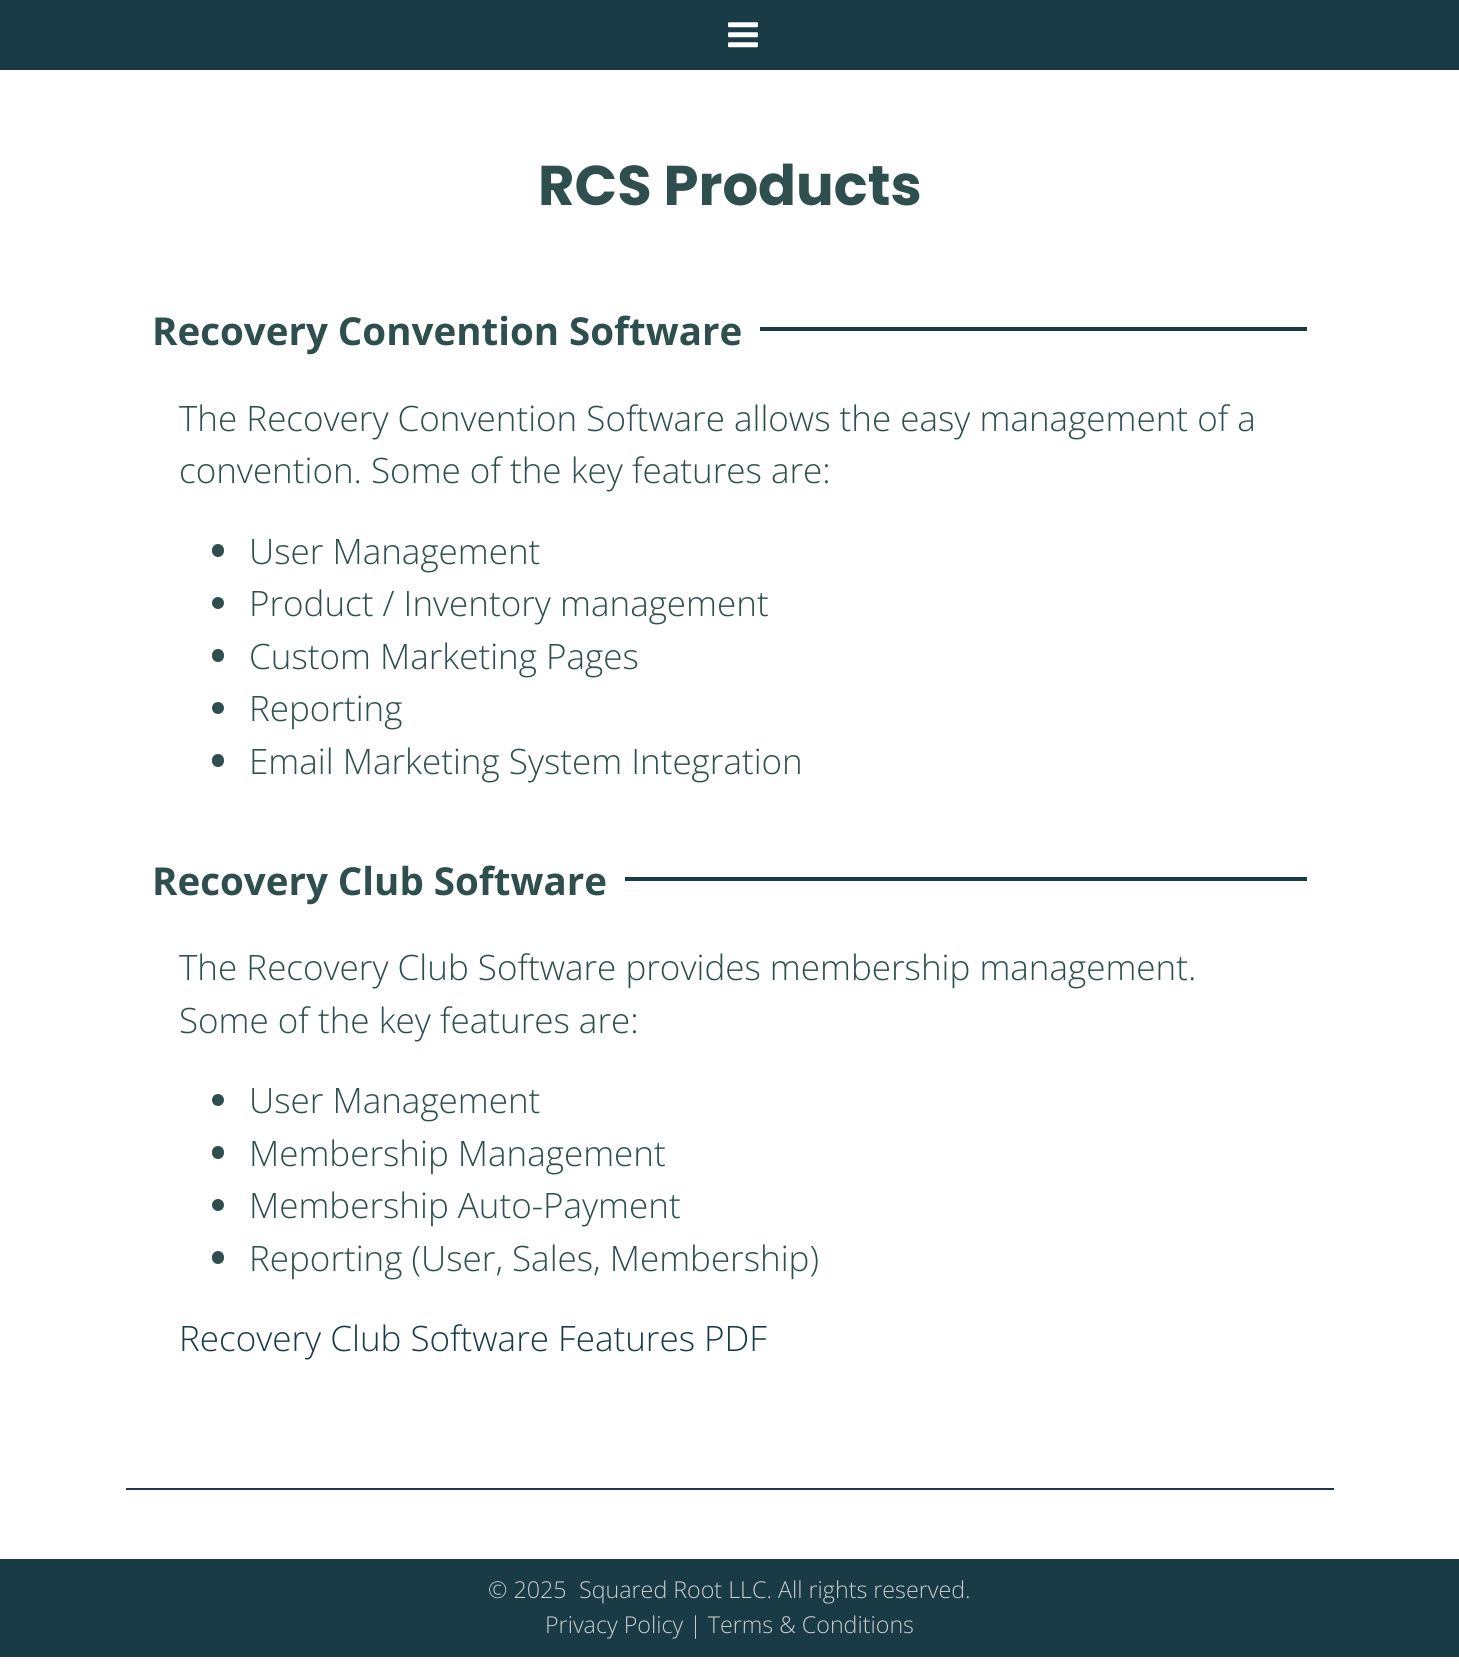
import math
import cairo


def use_color(cr, r, g, b):
  cr.set_source_rgb(r / 255, g / 255, b / 255)

def text(cr, x, y, s, family, size, color, bold=False, italic=False):
  cr.select_font_face(family, cairo.FONT_SLANT_ITALIC if italic else cairo.FONT_SLANT_NORMAL, cairo.FONT_WEIGHT_BOLD if bold else cairo.FONT_WEIGHT_NORMAL)
  cr.set_font_size(size)
  use_color(cr, *color)
  cr.move_to(x, y)
  cr.show_text(s)

def box(cr, x, y, w, h, *color):
  use_color(cr, *color)
  cr.rectangle(x, y, w, h)
  cr.fill()

def round_rect(cr, x, y, w, h, r):
  cr.new_sub_path()
  for i, (u, v) in enumerate([(x + w - r, y + h - r), (x + r, y + h - r), (x + r, y + r), (x + w - r, y + r)]):
    cr.arc(u, v, r, i * math.pi / 2, (i + 1) * math.pi / 2)
  cr.close_path()

def picture(cr, path, x, y, w, h):
  cr.save()
  cr.set_source_surface(cairo.ImageSurface.create_from_png(path), x, y)
  cr.rectangle(x, y, w, h)
  cr.fill()
  cr.restore()

def draw(cr):
  use_color(cr, 255, 255, 255)
  cr.paint()
  box(cr, 0, 0, 1459, 70, 25, 59, 69)
  picture(cr, "img_01.png", 728, 22, 30, 26)
  box(cr, 126, 1488, 1208, 2, 25, 59, 69)
  box(cr, 760, 327, 547, 4, 25, 59, 69)
  use_color(cr, 47, 79, 79)
  round_rect(cr, 212, 544, 12, 13, 6)
  cr.fill()
  cr.arc(218, 603, 6, 0, 2 * math.pi)
  cr.fill()
  round_rect(cr, 212, 649, 12, 13, 6)
  cr.fill()
  cr.arc(218, 708, 6, 0, 2 * math.pi)
  cr.fill()
  round_rect(cr, 212, 754, 12, 13, 6)
  cr.fill()
  box(cr, 625, 877, 682, 4, 25, 59, 69)
  use_color(cr, 47, 79, 79)
  cr.arc(218, 1100, 6, 0, 2 * math.pi)
  cr.fill()
  round_rect(cr, 212, 1146, 12, 13, 6)
  cr.fill()
  cr.arc(218, 1205, 6, 0, 2 * math.pi)
  cr.fill()
  round_rect(cr, 212, 1251, 12, 13, 6)
  cr.fill()
  box(cr, 0, 1559, 1459, 98, 25, 59, 69)
  text(cr, 538, 205, "RCS Products", "Poppins", 56, (47, 79, 79), bold=True)
  text(cr, 152, 345, "Recovery Convention Software", "Open Sans", 38.5, (47, 79, 79), bold=True)
  text(cr, 179, 431, "The Recovery Convention Software allows the easy management of a", "Open Sans Light", 35, (47, 79, 79))
  text(cr, 179, 483, "convention. Some of the key features are:", "Open Sans Light", 35, (47, 79, 79))
  text(cr, 249, 564, "User Management", "Open Sans Light", 35, (47, 79, 79))
  text(cr, 249, 616, "Product / Inventory management", "Open Sans Light", 35, (47, 79, 79))
  text(cr, 249, 669, "Custom Marketing Pages", "Open Sans Light", 35, (47, 79, 79))
  text(cr, 249, 721, "Reporting", "Open Sans Light", 35, (47, 79, 79))
  text(cr, 249, 774, "Email Marketing System Integration", "Open Sans Light", 35, (47, 79, 79))
  text(cr, 152, 895, "Recovery Club Software", "Open Sans", 38.5, (47, 79, 79), bold=True)
  text(cr, 179, 980, "The Recovery Club Software provides membership management.", "Open Sans Light", 35, (47, 79, 79))
  text(cr, 179, 1033, "Some of the key features are:", "Open Sans Light", 35, (47, 79, 79))
  text(cr, 249, 1113, "User Management", "Open Sans Light", 35, (47, 79, 79))
  text(cr, 249, 1166, "Membership Management", "Open Sans Light", 35, (47, 79, 79))
  text(cr, 249, 1218, "Membership Auto-Payment", "Open Sans Light", 35, (47, 79, 79))
  text(cr, 249, 1271, "Reporting (User, Sales, Membership)", "Open Sans Light", 35, (47, 79, 79))
  text(cr, 179, 1351, "Recovery Club Software Features PDF", "Open Sans Light", 35, (25, 59, 69))
  text(cr, 488, 1598, "© 2025", "Open Sans Light", 23.25, (204, 204, 204))
  text(cr, 579, 1598, "Squared Root LLC. All rights reserved.", "Open Sans Light", 23.25, (204, 204, 204))
  text(cr, 545, 1633, "Privacy Policy | Terms & Conditions", "Open Sans Light", 23.25, (204, 204, 204))


surface = cairo.ImageSurface(cairo.FORMAT_RGB24, 1459, 1674)
cr = cairo.Context(surface)
options = cairo.FontOptions()
options.set_hint_metrics(cairo.HINT_METRICS_OFF)
options.set_hint_style(cairo.HINT_STYLE_NONE)
cr.set_font_options(options)
cr.set_miter_limit(4)
draw(cr)
surface.write_to_png("out.png")
